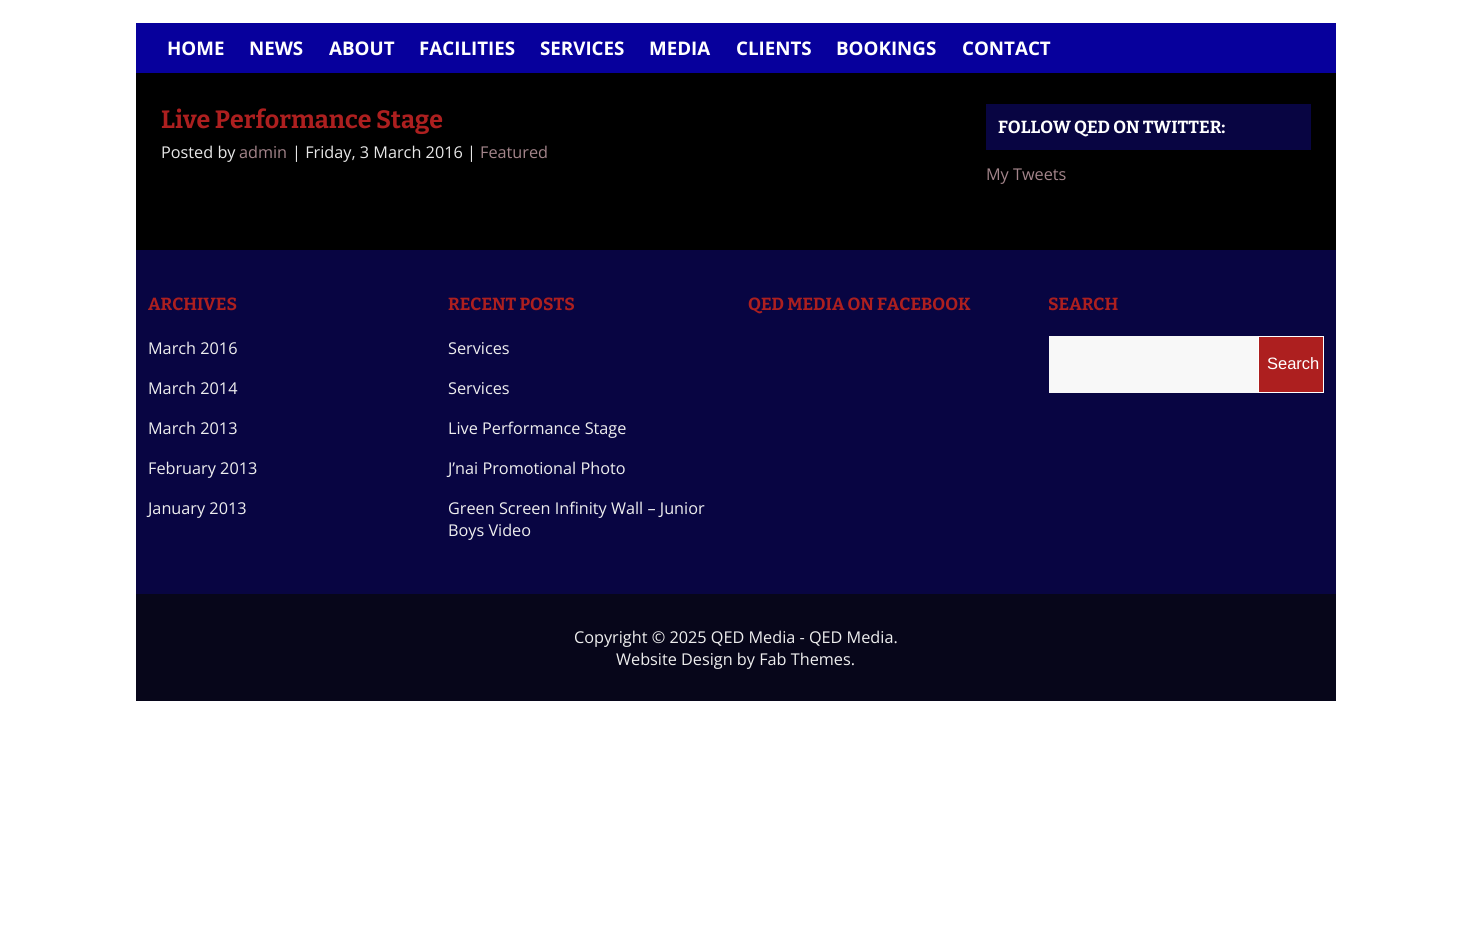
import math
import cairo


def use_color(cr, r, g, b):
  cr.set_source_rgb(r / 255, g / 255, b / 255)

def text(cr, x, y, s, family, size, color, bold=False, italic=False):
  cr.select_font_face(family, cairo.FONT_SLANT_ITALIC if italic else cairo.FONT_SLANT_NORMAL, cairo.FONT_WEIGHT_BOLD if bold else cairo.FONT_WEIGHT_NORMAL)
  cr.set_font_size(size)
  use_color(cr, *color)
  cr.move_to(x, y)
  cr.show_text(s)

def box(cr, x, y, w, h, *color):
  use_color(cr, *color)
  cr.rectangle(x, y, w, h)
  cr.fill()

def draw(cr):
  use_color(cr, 255, 255, 255)
  cr.paint()
  box(cr, 136, 23, 1200, 50, 7, 0, 156)
  box(cr, 136, 73, 1200, 177, 0, 0, 0)
  box(cr, 986, 104, 325, 46, 8, 5, 66)
  box(cr, 136, 250, 1200, 344, 8, 5, 66)
  box(cr, 1049, 336, 209, 57, 248, 248, 248)
  use_color(cr, 173, 31, 31)
  cr.rectangle(1258.5, 336.5, 65, 56)
  cr.fill_preserve()
  use_color(cr, 255, 255, 255)
  cr.set_line_width(1)
  cr.stroke()
  box(cr, 136, 594, 1200, 107, 7, 6, 26)
  text(cr, 167, 55, "HOME", "Open Sans", 18.75, (255, 255, 255), bold=True)
  text(cr, 249, 55, "NEWS", "Open Sans", 18.75, (255, 255, 255), bold=True)
  text(cr, 329, 55, "ABOUT", "Open Sans", 18.75, (255, 255, 255), bold=True)
  text(cr, 419, 55, "FACILITIES", "Open Sans", 18.75, (255, 255, 255), bold=True)
  text(cr, 540, 55, "SERVICES", "Open Sans", 18.75, (255, 255, 255), bold=True)
  text(cr, 649, 55, "MEDIA", "Open Sans", 18.75, (255, 255, 255), bold=True)
  text(cr, 736, 55, "CLIENTS", "Open Sans", 18.75, (255, 255, 255), bold=True)
  text(cr, 836, 55, "BOOKINGS", "Open Sans", 18.75, (255, 255, 255), bold=True)
  text(cr, 962, 55, "CONTACT", "Open Sans", 18.75, (255, 255, 255), bold=True)
  text(cr, 161, 128, "Live Performance Stage", "Bitter", 25, (173, 31, 31), bold=True)
  text(cr, 161, 158, "Posted by", "Open Sans", 16.25, (231, 231, 231))
  text(cr, 239, 158, "admin", "Open Sans", 16.25, (163, 132, 138))
  text(cr, 292, 158, "| Friday, 3 March 2016 |", "Open Sans", 16.25, (231, 231, 231))
  text(cr, 480, 158, "Featured", "Open Sans", 16.25, (163, 132, 138))
  text(cr, 998, 133, "FOLLOW QED ON TWITTER:", "Bitter", 17.5, (255, 255, 255), bold=True)
  text(cr, 986, 180, "My Tweets", "Open Sans", 16.25, (163, 132, 138))
  text(cr, 148, 310, "ARCHIVES", "Bitter", 17.5, (173, 31, 31), bold=True)
  text(cr, 148, 354, "March 2016", "Open Sans", 16.25, (238, 238, 238))
  text(cr, 148, 394, "March 2014", "Open Sans", 16.25, (238, 238, 238))
  text(cr, 148, 434, "March 2013", "Open Sans", 16.25, (238, 238, 238))
  text(cr, 148, 474, "February 2013", "Open Sans", 16.25, (238, 238, 238))
  text(cr, 148, 514, "January 2013", "Open Sans", 16.25, (238, 238, 238))
  text(cr, 448, 310, "RECENT POSTS", "Bitter", 17.5, (173, 31, 31), bold=True)
  text(cr, 448, 354, "Services", "Open Sans", 16.25, (238, 238, 238))
  text(cr, 448, 394, "Services", "Open Sans", 16.25, (238, 238, 238))
  text(cr, 448, 434, "Live Performance Stage", "Open Sans", 16.25, (238, 238, 238))
  text(cr, 448, 474, "J’nai Promotional Photo", "Open Sans", 16.25, (238, 238, 238))
  text(cr, 448, 514, "Green Screen Infinity Wall – Junior", "Open Sans", 16.25, (238, 238, 238))
  text(cr, 448, 536, "Boys Video", "Open Sans", 16.25, (238, 238, 238))
  text(cr, 748, 310, "QED MEDIA ON FACEBOOK", "Bitter", 17.5, (173, 31, 31), bold=True)
  text(cr, 1048, 310, "SEARCH", "Bitter", 17.5, (173, 31, 31), bold=True)
  text(cr, 1267, 369, "Search", "Liberation Sans", 16.5, (255, 255, 255))
  text(cr, 574, 643, "Copyright © 2025 QED Media - QED Media.", "Open Sans", 16.25, (238, 238, 238))
  text(cr, 616, 665, "Website Design by Fab Themes.", "Open Sans", 16.25, (238, 238, 238))


surface = cairo.ImageSurface(cairo.FORMAT_RGB24, 1471, 935)
cr = cairo.Context(surface)
options = cairo.FontOptions()
options.set_hint_metrics(cairo.HINT_METRICS_OFF)
options.set_hint_style(cairo.HINT_STYLE_NONE)
cr.set_font_options(options)
cr.set_miter_limit(4)
draw(cr)
surface.write_to_png("out.png")
